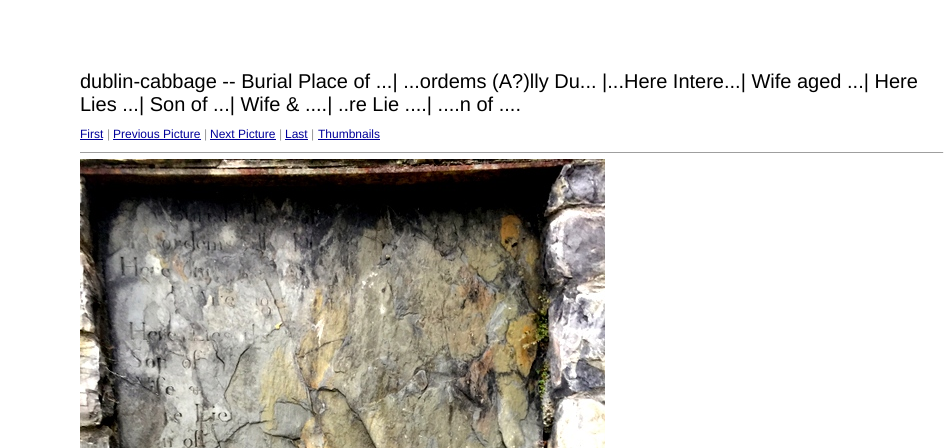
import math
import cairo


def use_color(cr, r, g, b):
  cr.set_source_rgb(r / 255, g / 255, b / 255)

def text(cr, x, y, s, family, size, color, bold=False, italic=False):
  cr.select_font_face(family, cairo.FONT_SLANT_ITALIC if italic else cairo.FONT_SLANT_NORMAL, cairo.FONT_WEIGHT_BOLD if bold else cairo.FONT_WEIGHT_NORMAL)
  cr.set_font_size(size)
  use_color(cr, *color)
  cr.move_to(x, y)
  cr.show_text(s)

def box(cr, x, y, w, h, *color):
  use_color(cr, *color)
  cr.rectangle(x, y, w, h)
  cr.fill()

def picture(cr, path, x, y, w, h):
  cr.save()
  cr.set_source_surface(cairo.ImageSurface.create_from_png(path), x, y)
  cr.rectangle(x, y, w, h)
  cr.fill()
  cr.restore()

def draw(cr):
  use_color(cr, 255, 255, 255)
  cr.paint()
  box(cr, 80, 139, 23, 1, 0, 0, 153)
  box(cr, 113, 139, 88, 1, 0, 0, 153)
  box(cr, 210, 139, 66, 1, 0, 0, 153)
  box(cr, 285, 139, 23, 1, 0, 0, 153)
  box(cr, 318, 139, 62, 1, 0, 0, 153)
  box(cr, 80, 152, 864, 1, 159, 159, 159)
  box(cr, 943, 152, 1, 1, 238, 238, 238)
  picture(cr, "img_01.png", 80, 159, 525, 289)
  text(cr, 80, 88, "dublin-cabbage -- Burial Place of ...| ...ordems (A?)lly Du... |...Here Intere...| Wife aged ...| Here", "Liberation Sans", 20, (0, 0, 0))
  text(cr, 80, 111, "Lies ...| Son of ...| Wife & ....| ..re Lie ....| ....n of ....", "Liberation Sans", 20, (0, 0, 0))
  text(cr, 80, 138, "First", "Liberation Sans", 12, (0, 0, 153))
  text(cr, 107, 138, "|", "Liberation Sans", 12, (151, 151, 151))
  text(cr, 113, 138, "Previous Picture", "Liberation Sans", 12, (0, 0, 153))
  text(cr, 204, 138, "|", "Liberation Sans", 12, (151, 151, 151))
  text(cr, 210, 138, "Next Picture", "Liberation Sans", 12, (0, 0, 153))
  text(cr, 279, 138, "|", "Liberation Sans", 12, (151, 151, 151))
  text(cr, 285, 138, "Last", "Liberation Sans", 12, (0, 0, 153))
  text(cr, 311, 138, "|", "Liberation Sans", 12, (151, 151, 151))
  text(cr, 318, 138, "Thumbnails", "Liberation Sans", 12, (0, 0, 153))


surface = cairo.ImageSurface(cairo.FORMAT_RGB24, 952, 448)
cr = cairo.Context(surface)
options = cairo.FontOptions()
options.set_hint_metrics(cairo.HINT_METRICS_OFF)
options.set_hint_style(cairo.HINT_STYLE_NONE)
cr.set_font_options(options)
cr.set_miter_limit(4)
draw(cr)
surface.write_to_png("out.png")
